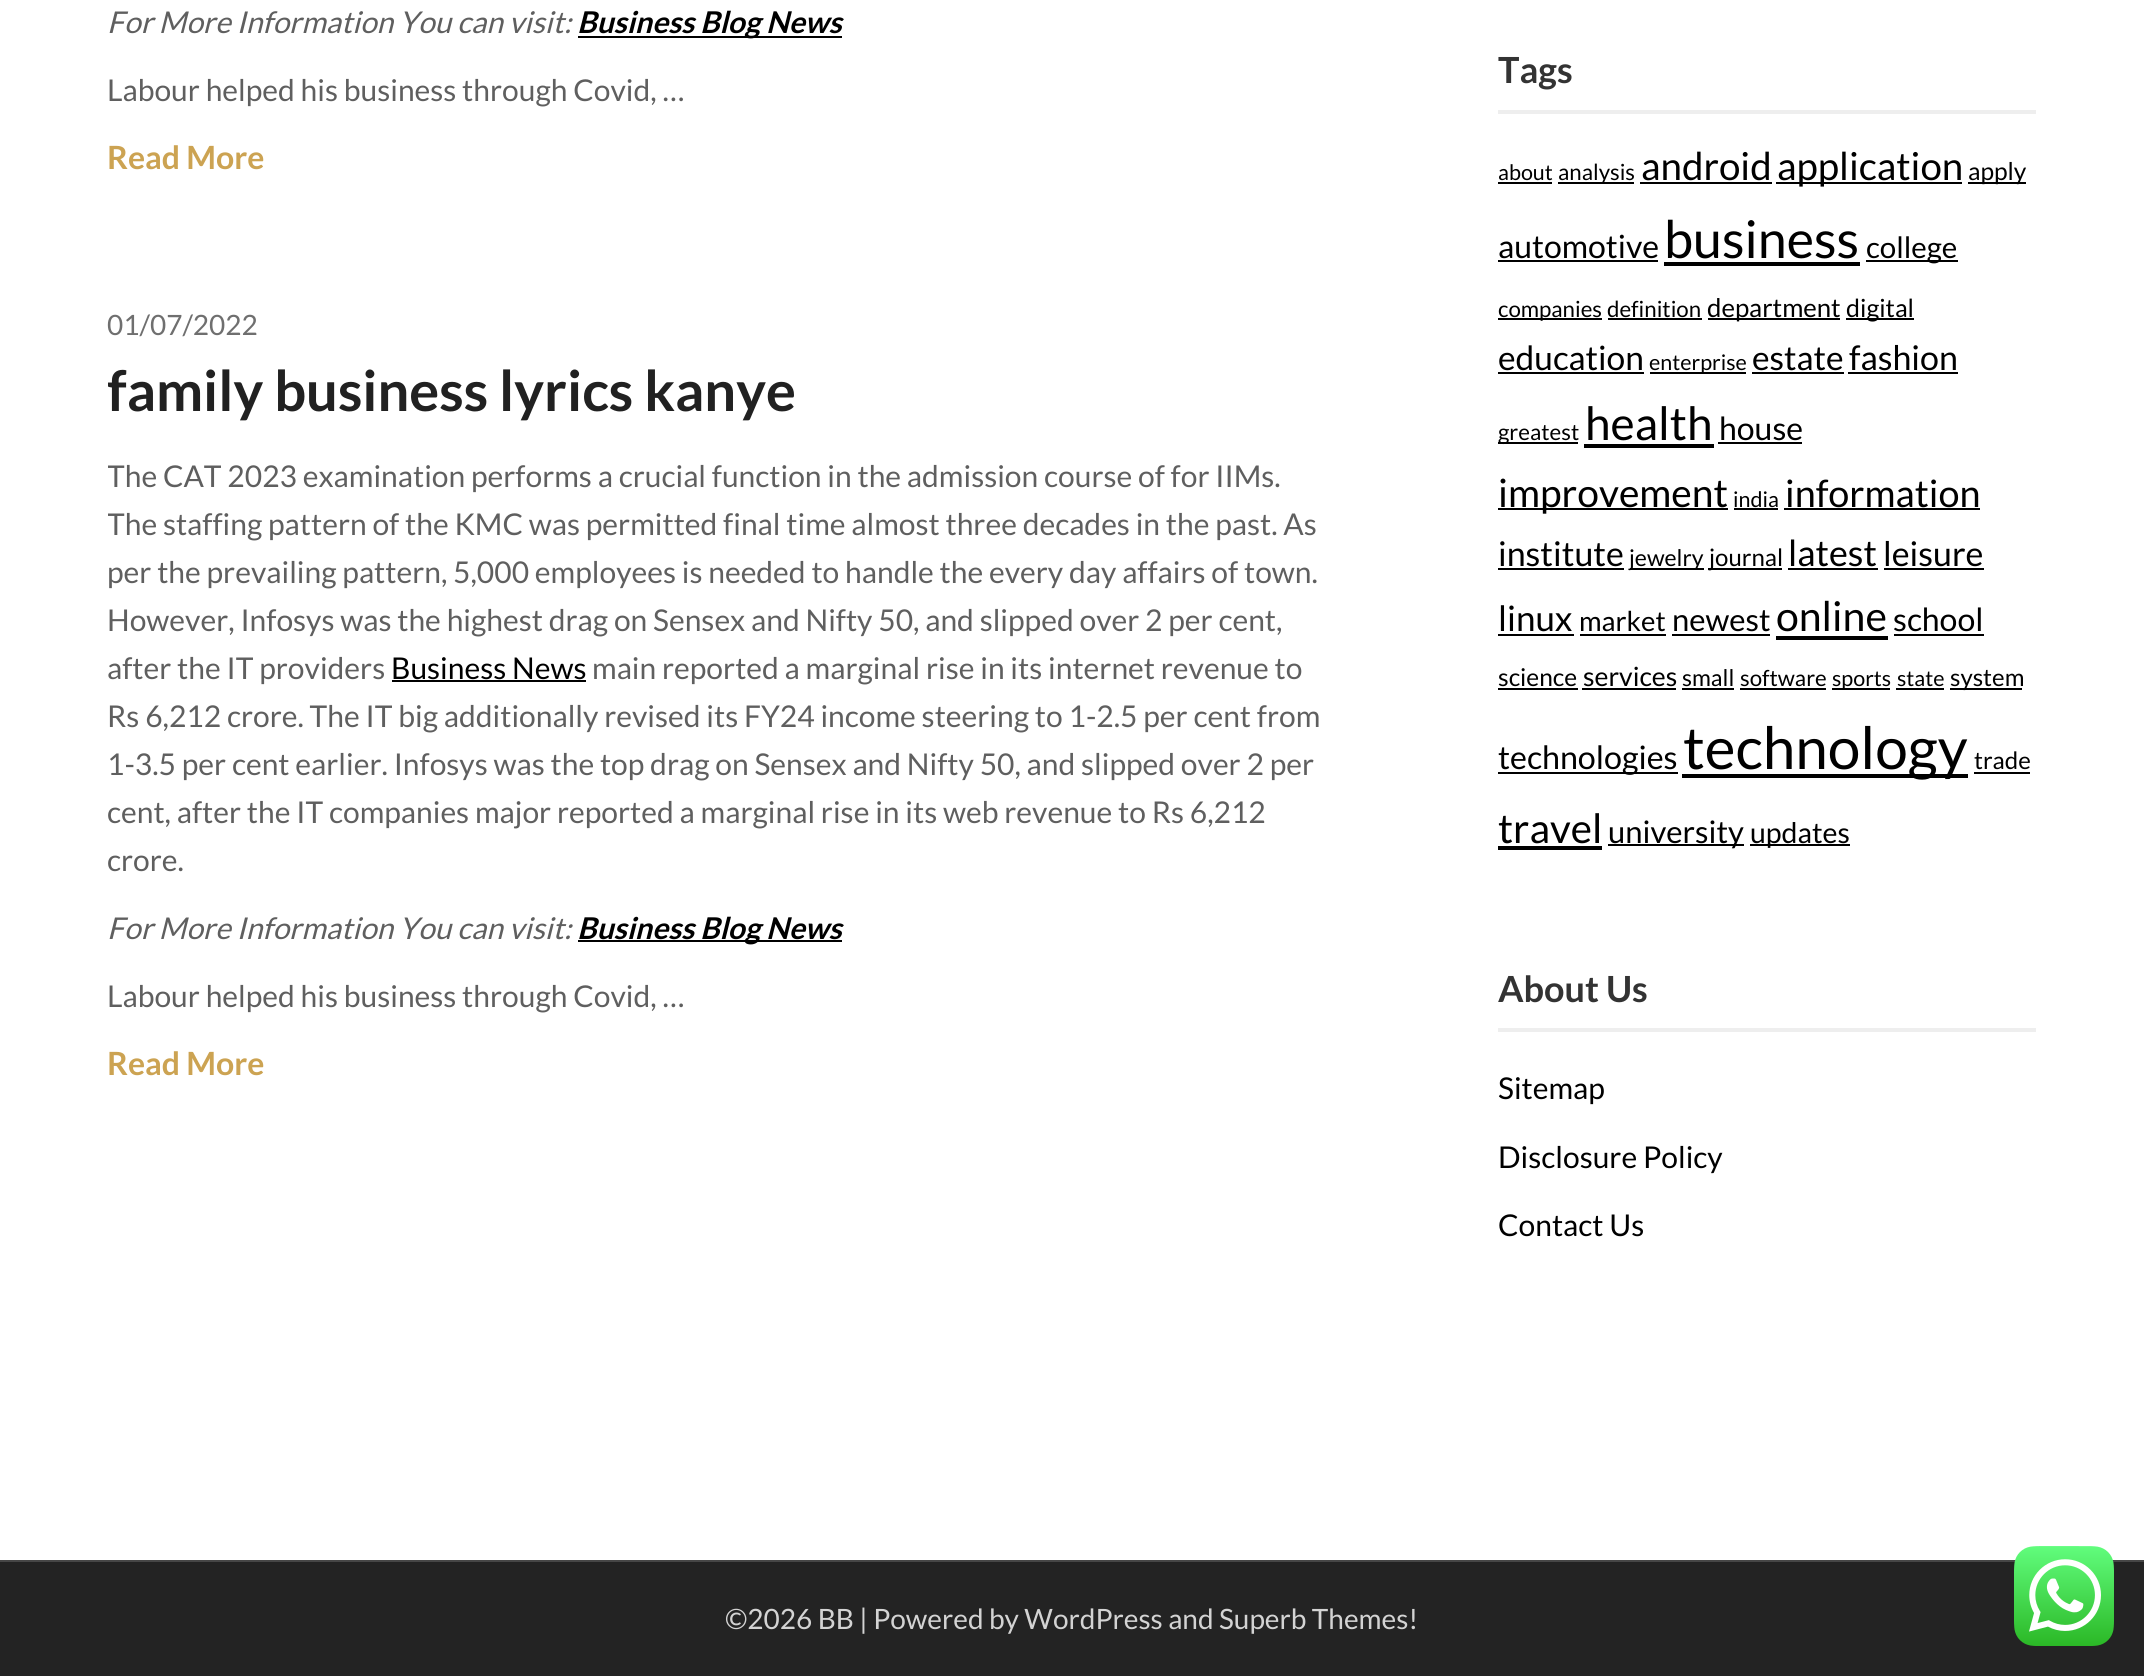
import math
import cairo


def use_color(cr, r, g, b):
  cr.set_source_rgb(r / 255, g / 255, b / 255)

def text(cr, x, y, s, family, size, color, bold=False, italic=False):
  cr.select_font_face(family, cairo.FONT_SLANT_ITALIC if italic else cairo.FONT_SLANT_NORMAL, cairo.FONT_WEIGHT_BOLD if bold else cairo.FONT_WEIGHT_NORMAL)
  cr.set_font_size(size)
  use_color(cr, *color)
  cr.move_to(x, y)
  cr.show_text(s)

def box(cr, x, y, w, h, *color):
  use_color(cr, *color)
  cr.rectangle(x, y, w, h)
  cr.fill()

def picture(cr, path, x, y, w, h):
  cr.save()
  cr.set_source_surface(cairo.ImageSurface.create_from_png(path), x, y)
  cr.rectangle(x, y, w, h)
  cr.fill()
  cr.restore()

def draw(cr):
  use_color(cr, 255, 255, 255)
  cr.paint()
  box(cr, 578, 36, 264, 2, 0, 0, 0)
  box(cr, 392, 680, 194, 2, 0, 0, 0)
  box(cr, 578, 940, 264, 2, 0, 0, 0)
  box(cr, 1498, 110, 538, 4, 238, 238, 238)
  box(cr, 1498, 182, 54, 2, 0, 0, 0)
  box(cr, 1558, 182, 76, 2, 0, 0, 0)
  box(cr, 1640, 182, 132, 2, 0, 0, 0)
  box(cr, 1776, 182, 186, 2, 0, 0, 0)
  box(cr, 1968, 182, 58, 2, 0, 0, 0)
  box(cr, 1498, 260, 160, 2, 0, 0, 0)
  box(cr, 1664, 262, 196, 4, 0, 0, 0)
  box(cr, 1866, 260, 92, 2, 0, 0, 0)
  box(cr, 1498, 318, 104, 2, 0, 0, 0)
  box(cr, 1608, 318, 94, 2, 0, 0, 0)
  box(cr, 1708, 318, 132, 2, 0, 0, 0)
  box(cr, 1846, 318, 68, 2, 0, 0, 0)
  box(cr, 1498, 372, 146, 2, 0, 0, 0)
  box(cr, 1650, 372, 96, 2, 0, 0, 0)
  box(cr, 1752, 372, 92, 2, 0, 0, 0)
  box(cr, 1848, 372, 110, 2, 0, 0, 0)
  box(cr, 1498, 442, 80, 2, 0, 0, 0)
  box(cr, 1584, 444, 130, 4, 0, 0, 0)
  box(cr, 1718, 442, 84, 2, 0, 0, 0)
  box(cr, 1498, 508, 230, 2, 0, 0, 0)
  box(cr, 1734, 508, 44, 2, 0, 0, 0)
  box(cr, 1784, 508, 196, 2, 0, 0, 0)
  box(cr, 1498, 568, 126, 2, 0, 0, 0)
  box(cr, 1630, 568, 74, 2, 0, 0, 0)
  box(cr, 1708, 568, 74, 2, 0, 0, 0)
  box(cr, 1788, 568, 90, 2, 0, 0, 0)
  box(cr, 1884, 568, 100, 2, 0, 0, 0)
  box(cr, 1498, 634, 76, 2, 0, 0, 0)
  box(cr, 1580, 634, 86, 2, 0, 0, 0)
  box(cr, 1672, 634, 98, 2, 0, 0, 0)
  box(cr, 1776, 636, 112, 4, 0, 0, 0)
  box(cr, 1894, 634, 90, 2, 0, 0, 0)
  box(cr, 1498, 688, 80, 2, 0, 0, 0)
  box(cr, 1582, 688, 94, 2, 0, 0, 0)
  box(cr, 1682, 688, 52, 2, 0, 0, 0)
  box(cr, 1740, 688, 86, 2, 0, 0, 0)
  box(cr, 1832, 688, 58, 2, 0, 0, 0)
  box(cr, 1896, 688, 48, 2, 0, 0, 0)
  box(cr, 1950, 688, 72, 2, 0, 0, 0)
  box(cr, 1498, 772, 180, 2, 0, 0, 0)
  box(cr, 1682, 774, 286, 4, 0, 0, 0)
  box(cr, 1974, 772, 56, 2, 0, 0, 0)
  box(cr, 1498, 846, 104, 4, 0, 0, 0)
  box(cr, 1608, 844, 136, 2, 0, 0, 0)
  box(cr, 1750, 844, 100, 2, 0, 0, 0)
  box(cr, 1498, 1028, 538, 4, 238, 238, 238)
  box(cr, 0, 1562, 2144, 114, 35, 35, 35)
  box(cr, 0, 1560, 2144, 2, 70, 70, 70)
  picture(cr, "img_01.png", 2014, 1546, 100, 100)
  text(cr, 107, 33, "For More Information You can visit:", "Lato", 30, (95, 95, 95), italic=True)
  text(cr, 577, 33, "Business Blog News", "Lato", 30, (0, 0, 0), bold=True, italic=True)
  text(cr, 107, 101, "Labour helped his business through Covid, …", "Lato", 30, (95, 95, 95))
  text(cr, 107, 169, "Read More", "Lato", 32, (204, 163, 82), bold=True)
  text(cr, 107, 335, "01/07/2022", "Lato", 28, (111, 111, 111))
  cr.save()
  cr.rectangle(108, 296, 1272, 790)
  cr.clip()
  text(cr, 107, 411, "family business lyrics kanye", "Lato", 56, (33, 33, 33), bold=True)
  text(cr, 107, 487, "The CAT 2023 examination performs a crucial function in the admission course of for IIMs.", "Lato", 30, (95, 95, 95))
  text(cr, 107, 535, "The staffing pattern of the KMC was permitted final time almost three decades in the past. As", "Lato", 30, (95, 95, 95))
  cr.restore()
  text(cr, 107, 583, "per the prevailing pattern, 5,000 employees is needed to handle the every day affairs of town.", "Lato", 30, (95, 95, 95))
  text(cr, 107, 631, "However, Infosys was the highest drag on Sensex and Nifty 50, and slipped over 2 per cent,", "Lato", 30, (95, 95, 95))
  text(cr, 107, 679, "after the IT providers", "Lato", 30, (95, 95, 95))
  text(cr, 391, 679, "Business News", "Lato", 30, (0, 0, 0))
  text(cr, 592, 679, "main reported a marginal rise in its internet revenue to", "Lato", 30, (95, 95, 95))
  text(cr, 107, 727, "Rs 6,212 crore. The IT big additionally revised its FY24 income steering to 1-2.5 per cent from", "Lato", 30, (95, 95, 95))
  text(cr, 107, 775, "1-3.5 per cent earlier. Infosys was the top drag on Sensex and Nifty 50, and slipped over 2 per", "Lato", 30, (95, 95, 95))
  text(cr, 107, 823, "cent, after the IT companies major reported a marginal rise in its web revenue to Rs 6,212", "Lato", 30, (95, 95, 95))
  text(cr, 107, 871, "crore.", "Lato", 30, (95, 95, 95))
  text(cr, 107, 939, "For More Information You can visit:", "Lato", 30, (95, 95, 95), italic=True)
  text(cr, 577, 939, "Business Blog News", "Lato", 30, (0, 0, 0), bold=True, italic=True)
  text(cr, 107, 1007, "Labour helped his business through Covid, …", "Lato", 30, (95, 95, 95))
  text(cr, 107, 1075, "Read More", "Lato", 32, (204, 163, 82), bold=True)
  text(cr, 1498, 83, "Tags", "Lato", 36, (51, 51, 51), bold=True)
  text(cr, 1498, 180, "about", "Lato", 21.5, (0, 0, 0))
  text(cr, 1558, 180, "analysis", "Lato", 22.25, (0, 0, 0))
  text(cr, 1641, 180, "android", "Lato", 38.5, (0, 0, 0))
  text(cr, 1777, 180, "application", "Lato", 38.5, (0, 0, 0))
  text(cr, 1968, 180, "apply", "Lato", 24.5, (0, 0, 0))
  text(cr, 1498, 258, "automotive", "Lato", 32, (0, 0, 0))
  text(cr, 1664, 258, "business", "Lato", 52, (0, 0, 0))
  text(cr, 1866, 258, "college", "Lato", 29.5, (0, 0, 0))
  text(cr, 1498, 317, "companies", "Lato", 22.25, (0, 0, 0))
  text(cr, 1607, 317, "definition", "Lato", 22.25, (0, 0, 0))
  text(cr, 1707, 317, "department", "Lato", 25.75, (0, 0, 0))
  text(cr, 1846, 317, "digital", "Lato", 25, (0, 0, 0))
  text(cr, 1498, 370, "education", "Lato", 33.5, (0, 0, 0))
  text(cr, 1649, 370, "enterprise", "Lato", 21.5, (0, 0, 0))
  text(cr, 1752, 370, "estate", "Lato", 33.5, (0, 0, 0))
  text(cr, 1849, 370, "fashion", "Lato", 34, (0, 0, 0))
  text(cr, 1498, 440, "greatest", "Lato", 22.25, (0, 0, 0))
  text(cr, 1585, 440, "health", "Lato", 46, (0, 0, 0))
  text(cr, 1719, 440, "house", "Lato", 32, (0, 0, 0))
  text(cr, 1498, 507, "improvement", "Lato", 39, (0, 0, 0))
  text(cr, 1733, 507, "india", "Lato", 21.5, (0, 0, 0))
  text(cr, 1785, 507, "information", "Lato", 37.75, (0, 0, 0))
  text(cr, 1498, 566, "institute", "Lato", 34, (0, 0, 0))
  text(cr, 1629, 566, "jewelry", "Lato", 23, (0, 0, 0))
  text(cr, 1709, 566, "journal", "Lato", 24, (0, 0, 0))
  text(cr, 1788, 566, "latest", "Lato", 36, (0, 0, 0))
  text(cr, 1883, 566, "leisure", "Lato", 34, (0, 0, 0))
  text(cr, 1498, 631, "linux", "Lato", 35, (0, 0, 0))
  text(cr, 1579, 631, "market", "Lato", 27.5, (0, 0, 0))
  text(cr, 1672, 631, "newest", "Lato", 31, (0, 0, 0))
  text(cr, 1776, 631, "online", "Lato", 41, (0, 0, 0))
  text(cr, 1893, 631, "school", "Lato", 32, (0, 0, 0))
  text(cr, 1498, 686, "science", "Lato", 24.5, (0, 0, 0))
  text(cr, 1583, 686, "services", "Lato", 26.5, (0, 0, 0))
  text(cr, 1682, 686, "small", "Lato", 23, (0, 0, 0))
  text(cr, 1740, 686, "software", "Lato", 22.25, (0, 0, 0))
  text(cr, 1832, 686, "sports", "Lato", 21.5, (0, 0, 0))
  text(cr, 1897, 686, "state", "Lato", 21.5, (0, 0, 0))
  text(cr, 1950, 686, "system", "Lato", 24, (0, 0, 0))
  text(cr, 1498, 769, "technologies", "Lato", 32.25, (0, 0, 0))
  text(cr, 1683, 769, "technology", "Lato", 58.5, (0, 0, 0))
  text(cr, 1974, 769, "trade", "Lato", 24, (0, 0, 0))
  text(cr, 1498, 843, "travel", "Lato", 40.5, (0, 0, 0))
  text(cr, 1608, 843, "university", "Lato", 31, (0, 0, 0))
  text(cr, 1750, 843, "updates", "Lato", 28.5, (0, 0, 0))
  text(cr, 1498, 1002, "About Us", "Lato", 36, (51, 51, 51), bold=True)
  text(cr, 1498, 1099, "Sitemap", "Lato", 30, (0, 0, 0))
  text(cr, 1498, 1168, "Disclosure Policy", "Lato", 30, (0, 0, 0))
  text(cr, 1498, 1236, "Contact Us", "Lato", 30, (0, 0, 0))
  text(cr, 725, 1629, "©2026 BB | Powered by WordPress and Superb Themes!", "Lato", 28, (211, 211, 211))


surface = cairo.ImageSurface(cairo.FORMAT_RGB24, 2144, 1676)
cr = cairo.Context(surface)
options = cairo.FontOptions()
options.set_hint_metrics(cairo.HINT_METRICS_OFF)
options.set_hint_style(cairo.HINT_STYLE_NONE)
cr.set_font_options(options)
cr.set_miter_limit(4)
draw(cr)
surface.write_to_png("out.png")
